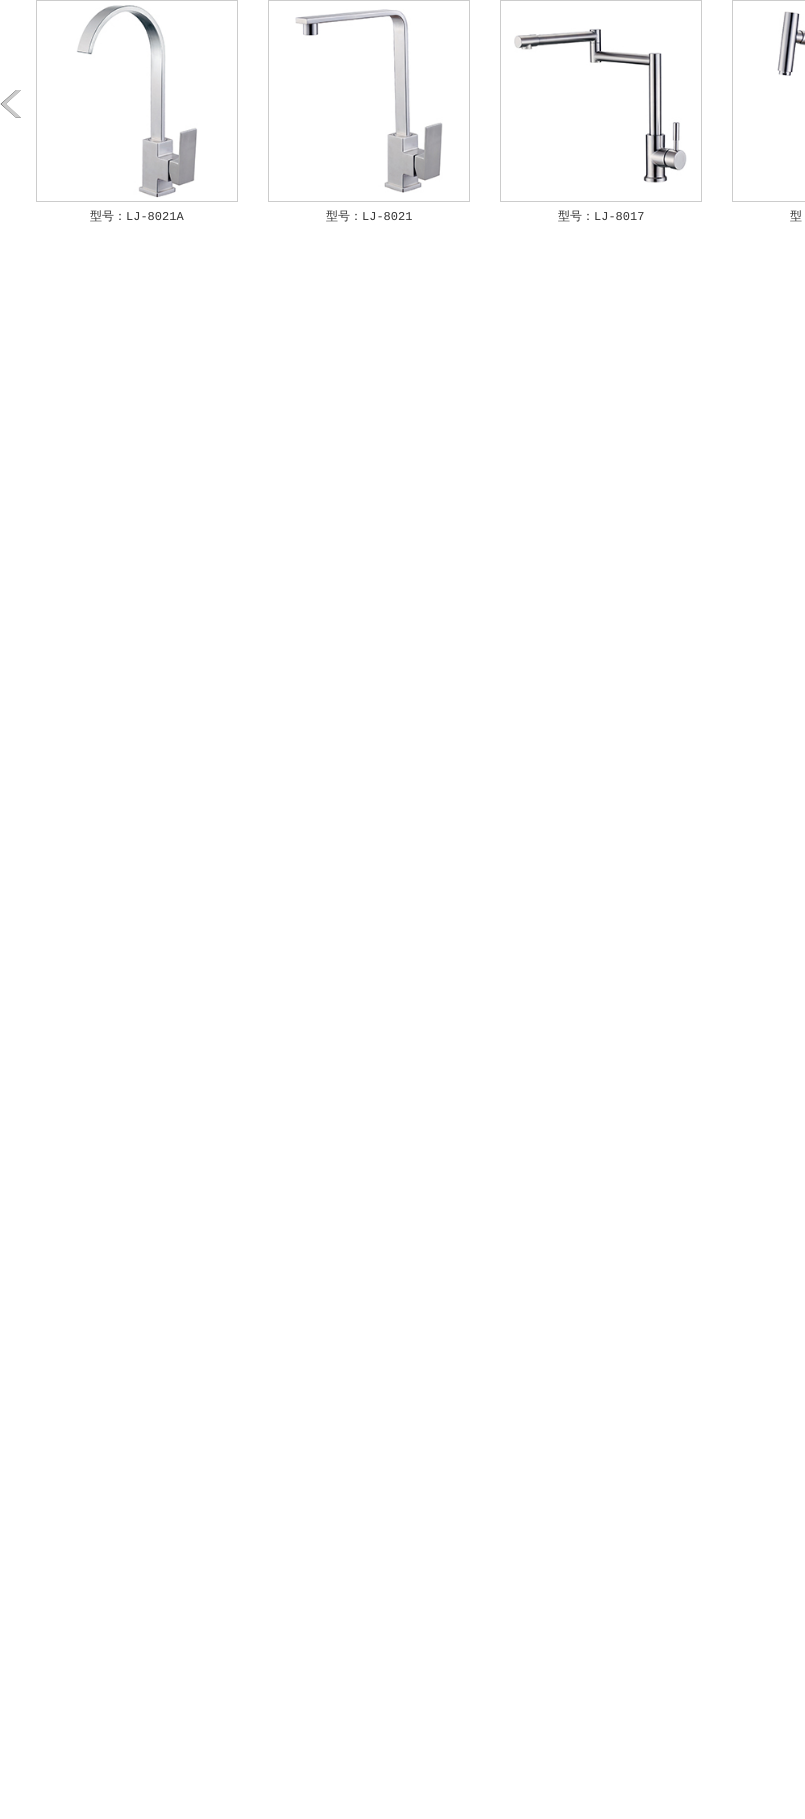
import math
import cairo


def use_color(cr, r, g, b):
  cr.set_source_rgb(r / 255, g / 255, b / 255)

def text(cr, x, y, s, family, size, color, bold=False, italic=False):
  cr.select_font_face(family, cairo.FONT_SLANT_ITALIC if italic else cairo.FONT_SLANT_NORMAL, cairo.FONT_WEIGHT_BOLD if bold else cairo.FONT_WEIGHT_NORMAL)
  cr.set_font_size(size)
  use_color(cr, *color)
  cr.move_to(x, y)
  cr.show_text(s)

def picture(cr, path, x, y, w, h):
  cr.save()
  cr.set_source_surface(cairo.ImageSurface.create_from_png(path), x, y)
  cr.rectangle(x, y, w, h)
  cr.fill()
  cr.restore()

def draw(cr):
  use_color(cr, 255, 255, 255)
  cr.paint()
  picture(cr, "img_01.png", 0, 90, 21, 28)
  cr.rectangle(36.5, 0.5, 201, 201)
  use_color(cr, 204, 204, 204)
  cr.set_line_width(1)
  cr.stroke()
  picture(cr, "img_02.png", 76, 5, 122, 193)
  cr.rectangle(268.5, 0.5, 201, 201)
  cr.stroke()
  picture(cr, "img_03.png", 295, 9, 148, 184)
  cr.rectangle(500.5, 0.5, 201, 201)
  cr.stroke()
  picture(cr, "img_04.png", 514, 28, 173, 155)
  cr.rectangle(732.5, 0.5, 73, 201)
  cr.stroke()
  picture(cr, "img_05.png", 777, 11, 28, 65)
  text(cr, 90, 220, "型号：", "WenQuanYi Zen Hei Medium", 12, (51, 51, 51))
  text(cr, 126, 220, "LJ-8021A", "Liberation Mono", 12, (51, 51, 51))
  text(cr, 326, 220, "型号：", "WenQuanYi Zen Hei Medium", 12, (51, 51, 51))
  text(cr, 362, 220, "LJ-8021", "Liberation Mono", 12, (51, 51, 51))
  text(cr, 558, 220, "型号：", "WenQuanYi Zen Hei Medium", 12, (51, 51, 51))
  text(cr, 594, 220, "LJ-8017", "Liberation Mono", 12, (51, 51, 51))
  text(cr, 790, 220, "型", "WenQuanYi Zen Hei Medium", 12, (51, 51, 51))


surface = cairo.ImageSurface(cairo.FORMAT_RGB24, 805, 1819)
cr = cairo.Context(surface)
options = cairo.FontOptions()
options.set_hint_metrics(cairo.HINT_METRICS_OFF)
options.set_hint_style(cairo.HINT_STYLE_NONE)
cr.set_font_options(options)
cr.set_miter_limit(4)
draw(cr)
surface.write_to_png("out.png")
